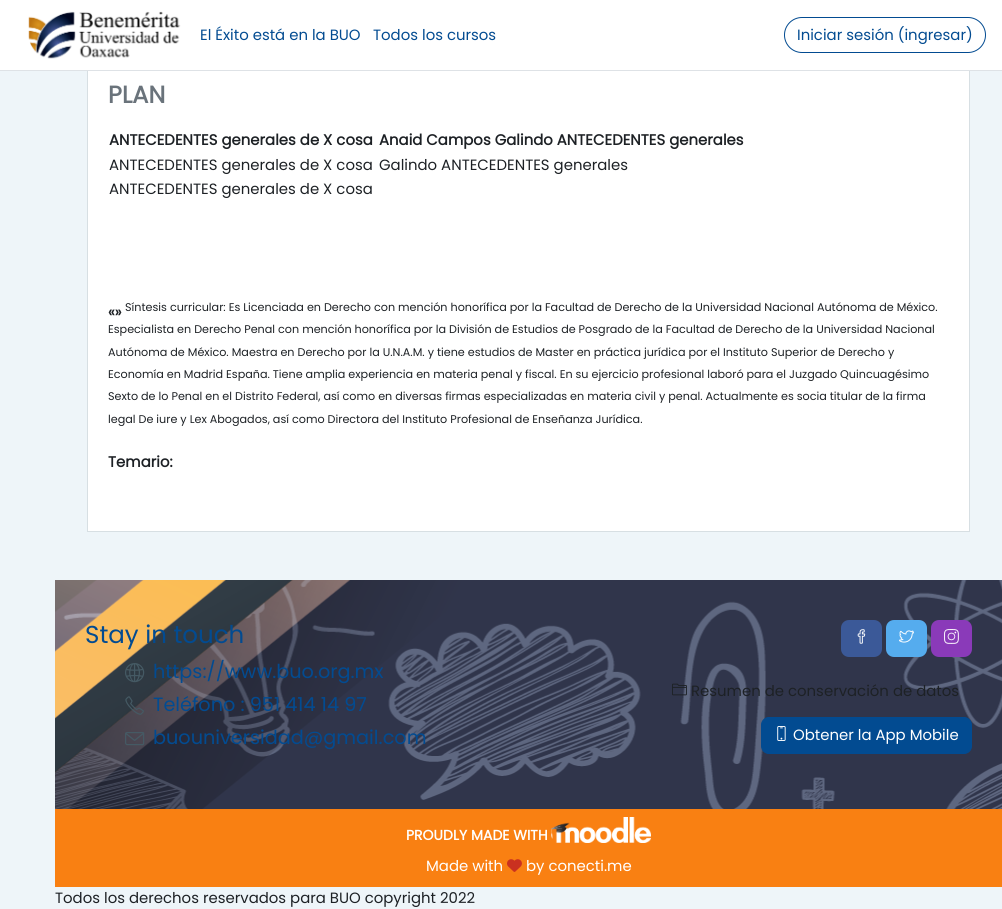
import math
import cairo


def use_color(cr, r, g, b):
  cr.set_source_rgb(r / 255, g / 255, b / 255)

def text(cr, x, y, s, family, size, color, bold=False, italic=False):
  cr.select_font_face(family, cairo.FONT_SLANT_ITALIC if italic else cairo.FONT_SLANT_NORMAL, cairo.FONT_WEIGHT_BOLD if bold else cairo.FONT_WEIGHT_NORMAL)
  cr.set_font_size(size)
  use_color(cr, *color)
  cr.move_to(x, y)
  cr.show_text(s)

def box(cr, x, y, w, h, *color):
  use_color(cr, *color)
  cr.rectangle(x, y, w, h)
  cr.fill()

def round_rect(cr, x, y, w, h, r):
  cr.new_sub_path()
  for i, (u, v) in enumerate([(x + w - r, y + h - r), (x + r, y + h - r), (x + r, y + r), (x + w - r, y + r)]):
    cr.arc(u, v, r, i * math.pi / 2, (i + 1) * math.pi / 2)
  cr.close_path()

def picture(cr, path, x, y, w, h):
  cr.save()
  cr.set_source_surface(cairo.ImageSurface.create_from_png(path), x, y)
  cr.rectangle(x, y, w, h)
  cr.fill()
  cr.restore()

def draw(cr):
  use_color(cr, 238, 245, 249)
  cr.paint()
  box(cr, 88, 71, 881, 460, 255, 255, 255)
  cr.rectangle(87.5, -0.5, 882, 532)
  use_color(cr, 215, 223, 227)
  cr.set_line_width(1)
  cr.stroke()
  box(cr, 0, 0, 1002, 70, 255, 255, 255)
  box(cr, 0, 70, 1002, 1, 222, 226, 230)
  picture(cr, "img_01.png", 28, 11, 153, 48)
  round_rect(cr, 784.5, 17.5, 201, 35, 17.5)
  use_color(cr, 2, 75, 145)
  cr.stroke()
  picture(cr, "img_02.png", 55, 580, 947, 229)
  picture(cr, "img_03.png", 125, 663, 20, 20)
  picture(cr, "img_04.png", 125, 696, 19, 19)
  picture(cr, "img_05.png", 125, 732, 20, 14)
  use_color(cr, 59, 89, 152)
  round_rect(cr, 841, 620, 41, 37, 8)
  cr.fill()
  picture(cr, "img_06.png", 857, 629, 9, 15)
  use_color(cr, 85, 172, 238)
  round_rect(cr, 886, 620, 41, 37, 8)
  cr.fill()
  picture(cr, "img_07.png", 899, 630, 15, 13)
  use_color(cr, 138, 58, 185)
  round_rect(cr, 931, 620, 41, 37, 8)
  cr.fill()
  picture(cr, "img_08.png", 944, 629, 15, 15)
  picture(cr, "img_09.png", 672, 683, 15, 13)
  use_color(cr, 2, 75, 145)
  round_rect(cr, 761.5, 717.5, 210, 36, 7.5)
  cr.fill_preserve()
  cr.stroke()
  picture(cr, "img_10.png", 777, 726, 9, 15)
  box(cr, 55, 809, 947, 78, 249, 128, 18)
  picture(cr, "img_11.png", 551, 817, 100, 26)
  picture(cr, "img_12.png", 507, 859, 15, 13)
  text(cr, 200, 40, "El Éxito está en la BUO", "Poppins", 14.9, (2, 75, 145))
  text(cr, 373, 40, "Todos los cursos", "Poppins", 14.9, (2, 75, 145))
  text(cr, 797, 40, "Iniciar sesión (ingresar)", "Poppins", 14.9, (2, 75, 145))
  text(cr, 108, 103, "PLAN", "Poppins", 24, (106, 115, 123), bold=True)
  text(cr, 109, 145, "ANTECEDENTES generales de X cosa", "Poppins", 14.9, (29, 33, 37), bold=True)
  text(cr, 379, 145, "Anaid Campos Galindo ANTECEDENTES generales", "Poppins", 14.9, (29, 33, 37), bold=True)
  text(cr, 109, 170, "ANTECEDENTES generales de X cosa", "Poppins", 14.9, (29, 33, 37))
  text(cr, 379, 170, "Galindo ANTECEDENTES generales", "Poppins", 14.9, (29, 33, 37))
  text(cr, 109, 194, "ANTECEDENTES generales de X cosa", "Poppins", 14.9, (29, 33, 37))
  text(cr, 108, 317, "«»", "Poppins", 14.9, (29, 33, 37), bold=True)
  text(cr, 125, 311, "Síntesis curricular: Es Licenciada en Derecho con mención honorífica por la Facultad de Derecho de la Universidad Nacional Autónoma de México.", "Poppins", 11.18, (29, 33, 37))
  text(cr, 108, 333, "Especialista en Derecho Penal con mención honorífica por la División de Estudios de Posgrado de la Facultad de Derecho de la Universidad Nacional", "Poppins", 11.18, (29, 33, 37))
  text(cr, 108, 356, "Autónoma de México. Maestra en Derecho por la U.N.A.M. y tiene estudios de Master en práctica jurídica por el Instituto Superior de Derecho y", "Poppins", 11.18, (29, 33, 37))
  text(cr, 108, 378, "Economía en Madrid España. Tiene amplia experiencia en materia penal y fiscal. En su ejercicio profesional laboró para el Juzgado Quincuagésimo", "Poppins", 11.18, (29, 33, 37))
  text(cr, 108, 400, "Sexto de lo Penal en el Distrito Federal, así como en diversas firmas especializadas en materia civil y penal. Actualmente es socia titular de la firma", "Poppins", 11.18, (29, 33, 37))
  text(cr, 108, 423, "legal De iure y Lex Abogados, así como Directora del Instituto Profesional de Enseñanza Jurídica.", "Poppins", 11.18, (29, 33, 37))
  text(cr, 108, 467, "Temario:", "Poppins", 14.9, (29, 33, 37), bold=True)
  text(cr, 85, 643, "Stay in touch", "Poppins", 24.5, (2, 75, 145))
  text(cr, 153, 678, "https://www.buo.org.mx", "Poppins", 19.25, (2, 75, 145))
  text(cr, 153, 711, "Teléfono : 951 414 14 97", "Poppins", 19.25, (2, 75, 145))
  text(cr, 153, 744, "buouniversidad@gmail.com", "Poppins", 19.25, (2, 75, 145))
  text(cr, 691, 696, "Resumen de conservación de datos", "Poppins", 14.9, (29, 33, 37))
  text(cr, 793, 740, "Obtener la App Mobile", "Poppins", 14.9, (255, 255, 255))
  text(cr, 406, 840, "PROUDLY MADE WITH", "Poppins", 14, (255, 255, 255), bold=True)
  text(cr, 426, 871, "Made with", "Poppins", 14.9, (255, 255, 255))
  text(cr, 526, 871, "by conecti.me", "Poppins", 14.9, (255, 255, 255))
  text(cr, 55, 903, "Todos los derechos reservados para BUO copyright 2022", "Poppins", 14.9, (29, 33, 37))


surface = cairo.ImageSurface(cairo.FORMAT_RGB24, 1002, 909)
cr = cairo.Context(surface)
options = cairo.FontOptions()
options.set_hint_metrics(cairo.HINT_METRICS_OFF)
options.set_hint_style(cairo.HINT_STYLE_NONE)
cr.set_font_options(options)
cr.set_miter_limit(4)
draw(cr)
surface.write_to_png("out.png")
